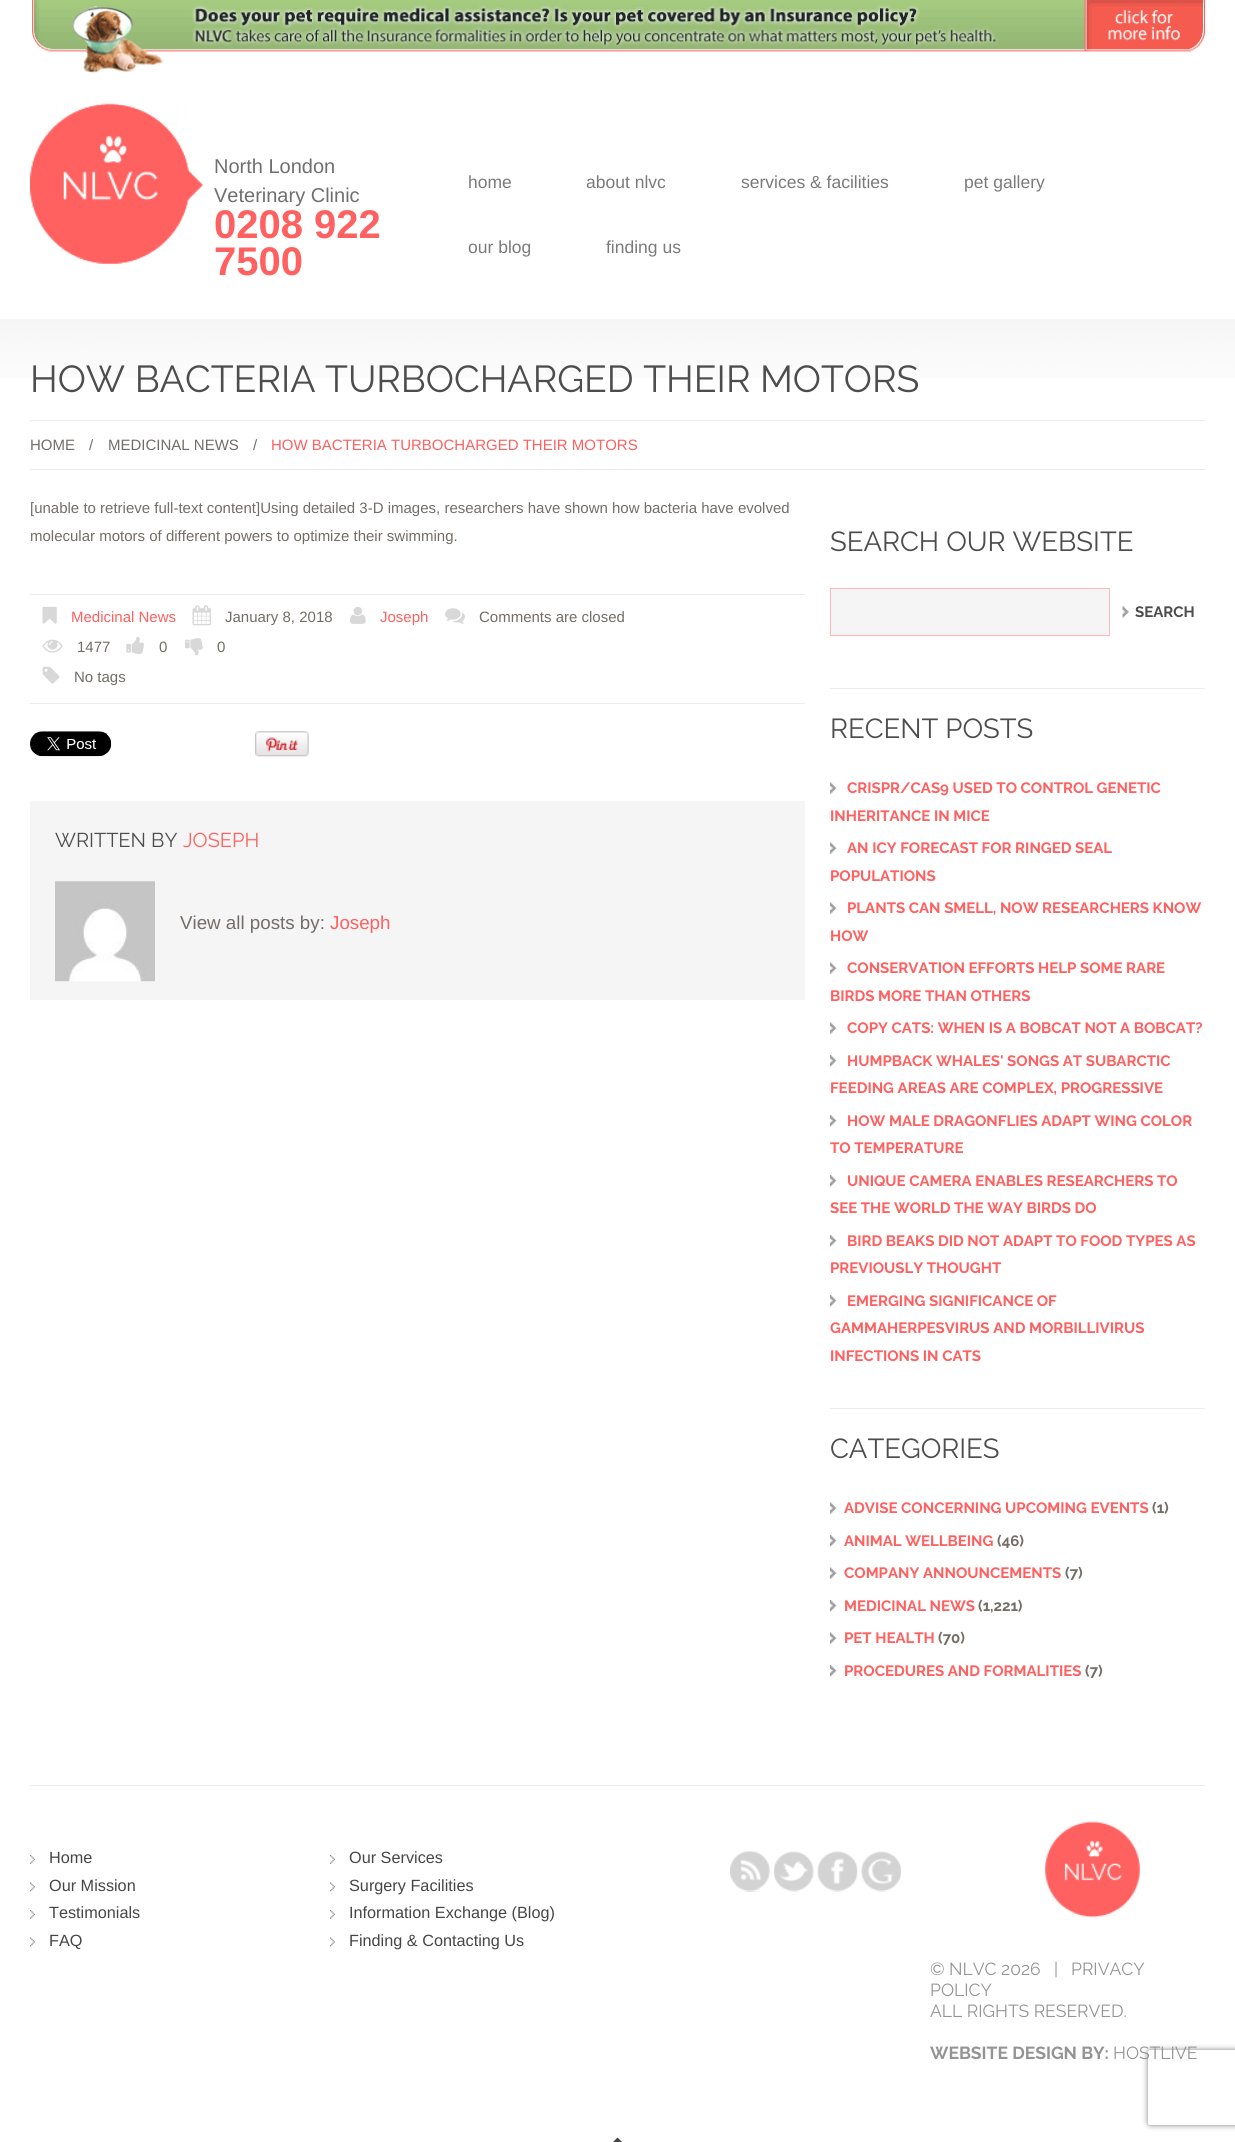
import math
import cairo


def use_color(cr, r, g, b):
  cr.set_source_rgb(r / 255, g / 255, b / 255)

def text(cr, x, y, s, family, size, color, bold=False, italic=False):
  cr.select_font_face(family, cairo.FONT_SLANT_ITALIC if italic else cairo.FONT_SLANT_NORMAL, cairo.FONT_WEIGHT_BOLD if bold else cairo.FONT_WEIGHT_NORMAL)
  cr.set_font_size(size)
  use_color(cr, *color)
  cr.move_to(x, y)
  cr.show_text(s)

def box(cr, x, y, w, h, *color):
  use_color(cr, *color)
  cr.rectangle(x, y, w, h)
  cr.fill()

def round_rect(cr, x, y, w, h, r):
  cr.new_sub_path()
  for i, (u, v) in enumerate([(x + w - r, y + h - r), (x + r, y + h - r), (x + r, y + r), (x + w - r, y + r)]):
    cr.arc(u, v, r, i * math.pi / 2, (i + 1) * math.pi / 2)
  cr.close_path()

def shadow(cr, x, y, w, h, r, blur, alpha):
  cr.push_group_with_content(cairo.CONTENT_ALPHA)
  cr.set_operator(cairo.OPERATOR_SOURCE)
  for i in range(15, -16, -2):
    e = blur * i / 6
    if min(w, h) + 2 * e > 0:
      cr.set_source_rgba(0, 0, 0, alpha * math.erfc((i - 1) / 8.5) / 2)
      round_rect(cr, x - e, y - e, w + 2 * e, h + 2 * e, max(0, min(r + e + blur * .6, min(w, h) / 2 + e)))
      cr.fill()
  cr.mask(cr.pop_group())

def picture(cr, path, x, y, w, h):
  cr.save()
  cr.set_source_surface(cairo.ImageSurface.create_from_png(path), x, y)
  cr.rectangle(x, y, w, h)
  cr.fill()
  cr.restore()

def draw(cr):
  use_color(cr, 255, 255, 255)
  cr.paint()
  picture(cr, "img_01.png", 32, 0, 1173, 73)
  picture(cr, "img_02.png", 30, 103, 173, 161)
  picture(cr, "img_03.png", 0, 319, 1235, 59)
  box(cr, 30, 420, 1175, 1, 235, 235, 235)
  box(cr, 30, 469, 1175, 1, 235, 235, 235)
  box(cr, 30, 594, 775, 1, 236, 236, 236)
  box(cr, 30, 703, 775, 1, 236, 236, 236)
  picture(cr, "img_04.png", 42, 606, 15, 18)
  picture(cr, "img_05.png", 192, 605, 19, 21)
  picture(cr, "img_06.png", 350, 606, 16, 18)
  picture(cr, "img_07.png", 445, 608, 20, 16)
  picture(cr, "img_08.png", 42, 639, 21, 14)
  picture(cr, "img_09.png", 126, 636, 18, 18)
  picture(cr, "img_10.png", 185, 638, 18, 18)
  picture(cr, "img_11.png", 42, 666, 18, 18)
  picture(cr, "img_12.png", 30, 731, 82, 26)
  picture(cr, "img_13.png", 255, 731, 54, 26)
  box(cr, 30, 801, 775, 199, 245, 245, 245)
  picture(cr, "img_14.png", 55, 881, 100, 101)
  cr.rectangle(830.5, 588.5, 279, 47)
  cr.fill_preserve()
  use_color(cr, 255, 184, 184)
  cr.set_line_width(1)
  cr.stroke()
  picture(cr, "img_15.png", 1122, 606, 7, 12)
  box(cr, 830, 688, 375, 1, 235, 235, 235)
  picture(cr, "img_16.png", 830, 782, 7, 12)
  picture(cr, "img_16.png", 830, 842, 7, 12)
  picture(cr, "img_16.png", 830, 902, 7, 12)
  picture(cr, "img_16.png", 830, 962, 7, 12)
  picture(cr, "img_17.png", 830, 1022, 7, 12)
  picture(cr, "img_18.png", 830, 1055, 7, 12)
  picture(cr, "img_18.png", 830, 1115, 7, 12)
  picture(cr, "img_19.png", 830, 1175, 7, 12)
  picture(cr, "img_18.png", 830, 1235, 7, 12)
  picture(cr, "img_18.png", 830, 1295, 7, 12)
  box(cr, 830, 1408, 375, 1, 235, 235, 235)
  picture(cr, "img_16.png", 830, 1502, 7, 12)
  picture(cr, "img_18.png", 830, 1535, 7, 12)
  picture(cr, "img_16.png", 830, 1567, 7, 12)
  picture(cr, "img_18.png", 830, 1600, 7, 12)
  picture(cr, "img_16.png", 830, 1632, 7, 12)
  picture(cr, "img_18.png", 830, 1665, 7, 12)
  box(cr, 30, 1785, 1175, 1, 236, 236, 236)
  picture(cr, "img_20.png", 30, 1855, 5, 9)
  picture(cr, "img_21.png", 30, 1882, 5, 10)
  picture(cr, "img_22.png", 30, 1910, 5, 9)
  picture(cr, "img_21.png", 30, 1937, 5, 10)
  picture(cr, "img_23.png", 330, 1855, 5, 9)
  picture(cr, "img_24.png", 330, 1882, 5, 10)
  picture(cr, "img_25.png", 330, 1910, 5, 9)
  picture(cr, "img_24.png", 330, 1937, 5, 10)
  picture(cr, "img_26.png", 730, 1851, 40, 41)
  picture(cr, "img_27.png", 774, 1851, 40, 41)
  picture(cr, "img_28.png", 817, 1851, 41, 41)
  picture(cr, "img_29.png", 861, 1851, 40, 41)
  picture(cr, "img_30.png", 1045, 1821, 95, 97)
  use_color(cr, 70, 70, 70)
  cr.new_path()
  cr.move_to(635, 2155)
  cr.line_to(600, 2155)
  cr.line_to(617.5, 2137.5)
  cr.close_path()
  cr.fill()
  cr.save()
  cr.set_fill_rule(cairo.FILL_RULE_EVEN_ODD)
  cr.new_path()
  cr.move_to(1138, 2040)
  cr.line_to(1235, 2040)
  cr.line_to(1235, 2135)
  cr.line_to(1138, 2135)
  cr.close_path()
  cr.move_to(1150.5, 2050)
  cr.line_to(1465.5, 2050)
  cr.curve_to(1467, 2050, 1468, 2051, 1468, 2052.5)
  cr.line_to(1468, 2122.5)
  cr.curve_to(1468, 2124, 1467, 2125, 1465.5, 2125)
  cr.line_to(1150.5, 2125)
  cr.curve_to(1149, 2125, 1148, 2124, 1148, 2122.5)
  cr.line_to(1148, 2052.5)
  cr.curve_to(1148, 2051, 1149, 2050, 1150.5, 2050)
  cr.close_path()
  cr.clip()
  use_color(cr, 128, 128, 128)
  shadow(cr, 1148, 2050, 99, 75, 2.5, 3, 1)
  cr.restore()
  text(cr, 214, 173, "North London", "Liberation Sans", 20, (111, 111, 111))
  text(cr, 214, 202, "Veterinary Clinic", "Liberation Sans", 20, (111, 111, 111))
  text(cr, 214, 238, "0208 922", "Liberation Sans", 40, (255, 96, 96), bold=True)
  text(cr, 214, 275, "7500", "Liberation Sans", 40, (255, 96, 96), bold=True)
  text(cr, 468, 188, "home", "Liberation Sans", 17.5, (122, 122, 122))
  text(cr, 586, 188, "about nlvc", "Liberation Sans", 17.5, (122, 122, 122))
  text(cr, 741, 188, "services & facilities", "Liberation Sans", 17.5, (122, 122, 122))
  text(cr, 964, 188, "pet gallery", "Liberation Sans", 17.5, (122, 122, 122))
  text(cr, 468, 253, "our blog", "Liberation Sans", 17.5, (122, 122, 122))
  text(cr, 606, 253, "finding us", "Liberation Sans", 17.5, (122, 122, 122))
  text(cr, 30, 392, "HOW BACTERIA TURBOCHARGED THEIR MOTORS", "Raleway", 37.5, (77, 77, 77))
  text(cr, 30, 450, "HOME", "Liberation Sans", 15, (115, 109, 104))
  text(cr, 89, 450, "/", "Liberation Sans", 15, (115, 109, 104))
  text(cr, 108, 450, "MEDICINAL NEWS", "Liberation Sans", 15, (115, 109, 104))
  text(cr, 253, 450, "/", "Liberation Sans", 15, (115, 109, 104))
  text(cr, 271, 450, "HOW BACTERIA TURBOCHARGED THEIR MOTORS", "Liberation Sans", 15, (255, 96, 96))
  text(cr, 30, 513, "[unable to retrieve full-text content]Using detailed 3-D images, researchers have shown how bacteria have evolved", "Liberation Sans", 15, (115, 109, 104))
  text(cr, 30, 541, "molecular motors of different powers to optimize their swimming.", "Liberation Sans", 15, (115, 109, 104))
  text(cr, 71, 622, "Medicinal News", "Liberation Sans", 15, (255, 96, 96))
  text(cr, 225, 622, "January 8, 2018", "Liberation Sans", 15, (115, 109, 104))
  text(cr, 380, 622, "Joseph", "Liberation Sans", 15, (255, 96, 96))
  text(cr, 479, 622, "Comments are closed", "Liberation Sans", 15, (115, 109, 104))
  text(cr, 77, 652, "1477", "Liberation Sans", 15, (115, 109, 104))
  text(cr, 159, 652, "0", "Liberation Sans", 15, (115, 109, 104))
  text(cr, 217, 652, "0", "Liberation Sans", 15, (115, 109, 104))
  text(cr, 74, 682, "No tags", "Liberation Sans", 15, (115, 109, 104))
  text(cr, 55, 847, "WRITTEN BY", "Raleway", 20, (77, 77, 77))
  text(cr, 183, 847, "JOSEPH", "Raleway", 20, (255, 96, 96))
  text(cr, 180, 929, "View all posts by:", "Liberation Sans", 18.75, (115, 109, 104))
  text(cr, 330, 929, "Joseph", "Liberation Sans", 18.75, (255, 96, 96))
  text(cr, 830, 551, "SEARCH OUR WEBSITE", "Raleway", 27.5, (77, 77, 77))
  text(cr, 1135, 617, "SEARCH", "Raleway", 15, (77, 77, 77), bold=True)
  text(cr, 830, 738, "RECENT POSTS", "Raleway", 27.5, (77, 77, 77))
  text(cr, 847, 793, "CRISPR/CAS9 USED TO CONTROL GENETIC", "Raleway", 15, (255, 96, 96), bold=True)
  text(cr, 830, 821, "INHERITANCE IN MICE", "Raleway", 15, (255, 96, 96), bold=True)
  text(cr, 847, 853, "AN ICY FORECAST FOR RINGED SEAL", "Raleway", 15, (255, 96, 96), bold=True)
  text(cr, 830, 881, "POPULATIONS", "Raleway", 15, (255, 96, 96), bold=True)
  text(cr, 847, 913, "PLANTS CAN SMELL, NOW RESEARCHERS KNOW", "Raleway", 15, (255, 96, 96), bold=True)
  text(cr, 830, 941, "HOW", "Raleway", 15, (255, 96, 96), bold=True)
  text(cr, 847, 973, "CONSERVATION EFFORTS HELP SOME RARE", "Raleway", 15, (255, 96, 96), bold=True)
  text(cr, 830, 1001, "BIRDS MORE THAN OTHERS", "Raleway", 15, (255, 96, 96), bold=True)
  text(cr, 847, 1033, "COPY CATS: WHEN IS A BOBCAT NOT A BOBCAT?", "Raleway", 15, (255, 96, 96), bold=True)
  text(cr, 847, 1066, "HUMPBACK WHALES' SONGS AT SUBARCTIC", "Raleway", 15, (255, 96, 96), bold=True)
  text(cr, 830, 1093, "FEEDING AREAS ARE COMPLEX, PROGRESSIVE", "Raleway", 15, (255, 96, 96), bold=True)
  text(cr, 847, 1126, "HOW MALE DRAGONFLIES ADAPT WING COLOR", "Raleway", 15, (255, 96, 96), bold=True)
  text(cr, 830, 1153, "TO TEMPERATURE", "Raleway", 15, (255, 96, 96), bold=True)
  text(cr, 847, 1186, "UNIQUE CAMERA ENABLES RESEARCHERS TO", "Raleway", 15, (255, 96, 96), bold=True)
  text(cr, 830, 1213, "SEE THE WORLD THE WAY BIRDS DO", "Raleway", 15, (255, 96, 96), bold=True)
  text(cr, 847, 1246, "BIRD BEAKS DID NOT ADAPT TO FOOD TYPES AS", "Raleway", 15, (255, 96, 96), bold=True)
  text(cr, 830, 1273, "PREVIOUSLY THOUGHT", "Raleway", 15, (255, 96, 96), bold=True)
  text(cr, 847, 1306, "EMERGING SIGNIFICANCE OF", "Raleway", 15, (255, 96, 96), bold=True)
  text(cr, 830, 1333, "GAMMAHERPESVIRUS AND MORBILLIVIRUS", "Raleway", 15, (255, 96, 96), bold=True)
  text(cr, 830, 1361, "INFECTIONS IN CATS", "Raleway", 15, (255, 96, 96), bold=True)
  text(cr, 830, 1458, "CATEGORIES", "Raleway", 27.5, (77, 77, 77))
  text(cr, 844, 1513, "ADVISE CONCERNING UPCOMING EVENTS", "Raleway", 15, (255, 96, 96), bold=True)
  text(cr, 1152, 1513, "(1)", "Raleway", 15, (115, 109, 104), bold=True)
  text(cr, 844, 1546, "ANIMAL WELLBEING", "Raleway", 15, (255, 96, 96), bold=True)
  text(cr, 997, 1546, "(46)", "Raleway", 15, (115, 109, 104), bold=True)
  text(cr, 844, 1578, "COMPANY ANNOUNCEMENTS", "Raleway", 15, (255, 96, 96), bold=True)
  text(cr, 1065, 1578, "(7)", "Raleway", 15, (115, 109, 104), bold=True)
  text(cr, 844, 1611, "MEDICINAL NEWS", "Raleway", 15, (255, 96, 96), bold=True)
  text(cr, 978, 1611, "(1,221)", "Raleway", 15, (115, 109, 104), bold=True)
  text(cr, 844, 1643, "PET HEALTH", "Raleway", 15, (255, 96, 96), bold=True)
  text(cr, 938, 1643, "(70)", "Raleway", 15, (115, 109, 104), bold=True)
  text(cr, 844, 1676, "PROCEDURES AND FORMALITIES", "Raleway", 15, (255, 96, 96), bold=True)
  text(cr, 1085, 1676, "(7)", "Raleway", 15, (115, 109, 104), bold=True)
  text(cr, 49, 1863, "Home", "Liberation Sans", 16.25, (70, 70, 70))
  text(cr, 49, 1891, "Our Mission", "Liberation Sans", 16.25, (70, 70, 70))
  text(cr, 49, 1918, "Testimonials", "Liberation Sans", 16.25, (70, 70, 70))
  text(cr, 49, 1946, "FAQ", "Liberation Sans", 16.25, (70, 70, 70))
  text(cr, 349, 1863, "Our Services", "Liberation Sans", 16.25, (70, 70, 70))
  text(cr, 349, 1891, "Surgery Facilities", "Liberation Sans", 16.25, (70, 70, 70))
  text(cr, 349, 1918, "Information Exchange (Blog)", "Liberation Sans", 16.25, (70, 70, 70))
  text(cr, 349, 1946, "Finding & Contacting Us", "Liberation Sans", 16.25, (70, 70, 70))
  text(cr, 930, 1975, "© NLVC 2026   |", "Raleway", 17.5, (148, 148, 148))
  text(cr, 1071, 1975, "PRIVACY", "Raleway", 17.5, (148, 148, 148))
  text(cr, 930, 1996, "POLICY", "Raleway", 17.5, (148, 148, 148))
  text(cr, 930, 2017, "ALL RIGHTS RESERVED.", "Raleway", 17.5, (148, 148, 148))
  text(cr, 930, 2059, "WEBSITE DESIGN BY:", "Raleway", 17.5, (148, 148, 148), bold=True)
  text(cr, 1113, 2059, "HOSTLIVE", "Raleway", 17.5, (148, 148, 148))


surface = cairo.ImageSurface(cairo.FORMAT_RGB24, 1235, 2142)
cr = cairo.Context(surface)
options = cairo.FontOptions()
options.set_hint_metrics(cairo.HINT_METRICS_OFF)
options.set_hint_style(cairo.HINT_STYLE_NONE)
cr.set_font_options(options)
cr.set_miter_limit(4)
draw(cr)
surface.write_to_png("out.png")
